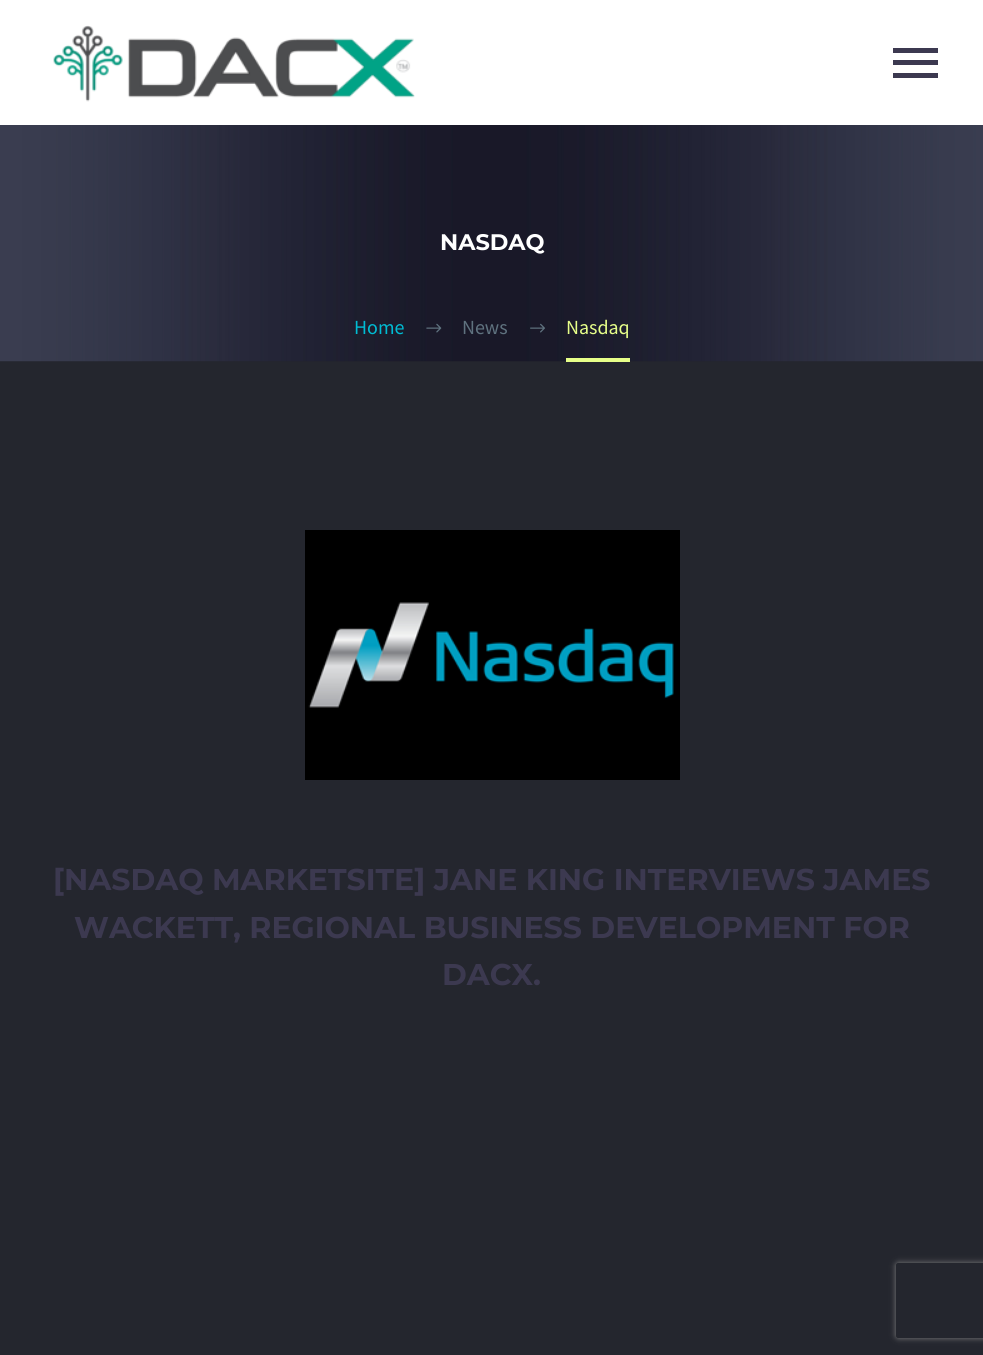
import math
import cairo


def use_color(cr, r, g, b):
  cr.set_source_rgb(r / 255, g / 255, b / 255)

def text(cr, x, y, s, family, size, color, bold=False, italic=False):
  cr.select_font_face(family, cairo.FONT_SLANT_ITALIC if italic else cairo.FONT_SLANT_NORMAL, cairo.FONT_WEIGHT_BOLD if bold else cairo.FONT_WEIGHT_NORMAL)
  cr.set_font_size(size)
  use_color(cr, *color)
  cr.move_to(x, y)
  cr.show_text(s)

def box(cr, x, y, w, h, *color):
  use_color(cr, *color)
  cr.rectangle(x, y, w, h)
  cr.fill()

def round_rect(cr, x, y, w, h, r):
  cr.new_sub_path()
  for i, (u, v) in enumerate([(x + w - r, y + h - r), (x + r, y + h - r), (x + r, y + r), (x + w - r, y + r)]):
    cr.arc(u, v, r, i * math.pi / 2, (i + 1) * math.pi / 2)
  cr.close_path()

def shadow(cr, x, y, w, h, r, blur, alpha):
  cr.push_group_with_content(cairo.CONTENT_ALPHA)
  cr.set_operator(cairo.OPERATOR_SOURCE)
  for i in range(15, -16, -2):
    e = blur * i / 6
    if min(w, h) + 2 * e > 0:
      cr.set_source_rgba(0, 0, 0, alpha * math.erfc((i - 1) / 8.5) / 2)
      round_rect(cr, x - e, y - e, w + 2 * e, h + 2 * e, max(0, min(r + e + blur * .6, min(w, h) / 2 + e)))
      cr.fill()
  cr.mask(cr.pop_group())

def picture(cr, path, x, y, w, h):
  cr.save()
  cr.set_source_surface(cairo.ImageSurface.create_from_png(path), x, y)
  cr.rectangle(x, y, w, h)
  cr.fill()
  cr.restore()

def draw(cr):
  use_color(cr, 36, 38, 46)
  cr.paint()
  box(cr, 0, 0, 983, 125, 255, 255, 255)
  picture(cr, "img_01.png", 53, 25, 362, 77)
  box(cr, 893, 48, 45, 5, 60, 57, 80)
  box(cr, 893, 60, 45, 5, 60, 57, 80)
  box(cr, 893, 73, 45, 5, 60, 57, 80)
  picture(cr, "img_02.png", 0, 125, 983, 237)
  picture(cr, "img_03.png", 426, 323, 16, 10)
  picture(cr, "img_04.png", 530, 323, 15, 10)
  box(cr, 566, 358, 64, 4, 231, 255, 137)
  picture(cr, "img_05.png", 305, 530, 375, 250)
  cr.save()
  cr.set_fill_rule(cairo.FILL_RULE_EVEN_ODD)
  cr.new_path()
  cr.move_to(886, 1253)
  cr.line_to(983, 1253)
  cr.line_to(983, 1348)
  cr.line_to(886, 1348)
  cr.close_path()
  cr.move_to(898.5, 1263)
  cr.line_to(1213.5, 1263)
  cr.curve_to(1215, 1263, 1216, 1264, 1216, 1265.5)
  cr.line_to(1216, 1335.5)
  cr.curve_to(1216, 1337, 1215, 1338, 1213.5, 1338)
  cr.line_to(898.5, 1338)
  cr.curve_to(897, 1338, 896, 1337, 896, 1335.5)
  cr.line_to(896, 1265.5)
  cr.curve_to(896, 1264, 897, 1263, 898.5, 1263)
  cr.close_path()
  cr.clip()
  use_color(cr, 128, 128, 128)
  shadow(cr, 896, 1263, 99, 75, 2.5, 3, 1)
  cr.restore()
  text(cr, 440, 250, "NASDAQ", "Montserrat", 22.5, (255, 255, 255), bold=True)
  text(cr, 354, 334, "Home", "Source Sans Pro", 20, (0, 188, 212))
  text(cr, 462, 334, "News", "Source Sans Pro", 20, (95, 114, 127))
  text(cr, 566, 334, "Nasdaq", "Source Sans Pro", 20, (231, 255, 137))
  text(cr, 53, 890, "[NASDAQ MARKETSITE] JANE KING INTERVIEWS JAMES", "Montserrat", 30, (60, 57, 80), bold=True)
  text(cr, 74, 938, "WACKETT, REGIONAL BUSINESS DEVELOPMENT FOR", "Montserrat", 30, (60, 57, 80), bold=True)
  text(cr, 442, 985, "DACX.", "Montserrat", 30, (60, 57, 80), bold=True)


surface = cairo.ImageSurface(cairo.FORMAT_RGB24, 983, 1355)
cr = cairo.Context(surface)
options = cairo.FontOptions()
options.set_hint_metrics(cairo.HINT_METRICS_OFF)
options.set_hint_style(cairo.HINT_STYLE_NONE)
cr.set_font_options(options)
cr.set_miter_limit(4)
draw(cr)
surface.write_to_png("out.png")
